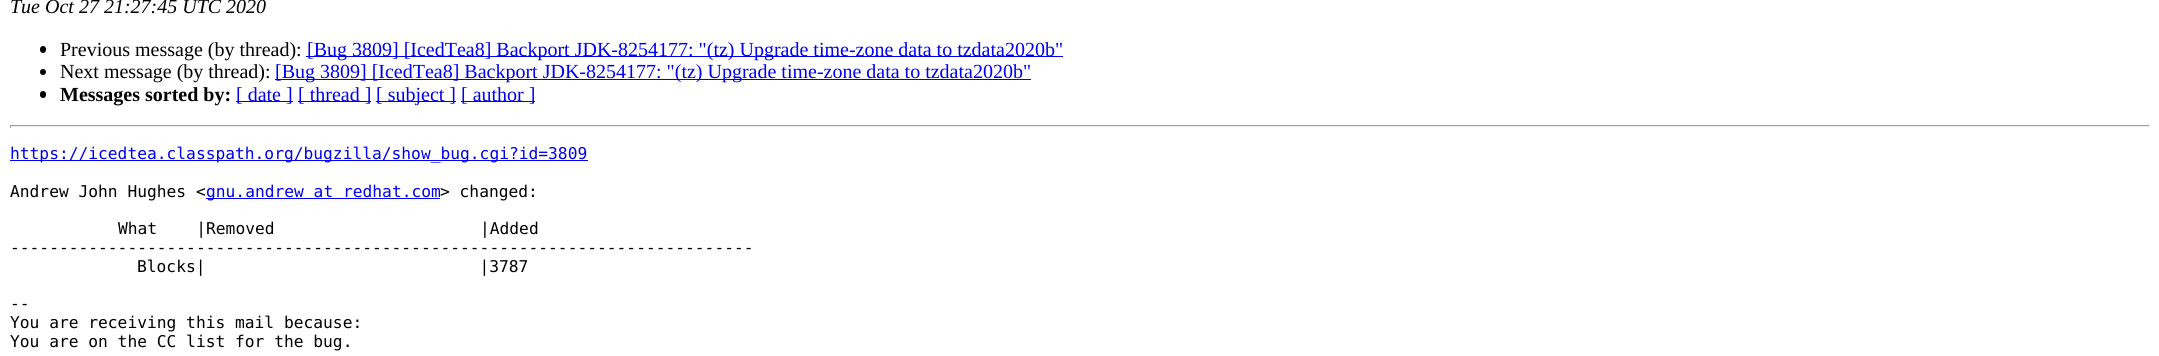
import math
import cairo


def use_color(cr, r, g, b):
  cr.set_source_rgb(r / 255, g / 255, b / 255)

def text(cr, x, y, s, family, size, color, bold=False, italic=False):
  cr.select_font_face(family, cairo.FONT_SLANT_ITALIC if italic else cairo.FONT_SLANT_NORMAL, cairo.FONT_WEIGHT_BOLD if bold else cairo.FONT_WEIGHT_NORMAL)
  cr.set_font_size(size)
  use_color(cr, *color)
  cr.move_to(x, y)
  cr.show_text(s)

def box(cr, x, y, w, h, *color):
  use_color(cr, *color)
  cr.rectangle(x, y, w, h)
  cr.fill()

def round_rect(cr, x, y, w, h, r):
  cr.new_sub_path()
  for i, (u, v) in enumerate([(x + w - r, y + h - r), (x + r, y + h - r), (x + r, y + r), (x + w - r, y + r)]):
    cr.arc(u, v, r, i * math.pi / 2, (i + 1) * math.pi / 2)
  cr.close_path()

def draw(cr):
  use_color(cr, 255, 255, 255)
  cr.paint()
  use_color(cr, 0, 0, 0)
  round_rect(cr, 40, 46, 6, 7, 3)
  cr.fill()
  box(cr, 306, 56, 757, 1, 0, 0, 238)
  use_color(cr, 0, 0, 0)
  cr.arc(43, 72, 3, 0, 2 * math.pi)
  cr.fill()
  box(cr, 275, 79, 756, 1, 0, 0, 238)
  use_color(cr, 0, 0, 0)
  round_rect(cr, 40, 91, 6, 7, 3)
  cr.fill()
  box(cr, 236, 101, 57, 1, 0, 0, 238)
  box(cr, 298, 101, 73, 1, 0, 0, 238)
  box(cr, 376, 101, 80, 1, 0, 0, 238)
  box(cr, 461, 101, 74, 1, 0, 0, 238)
  box(cr, 10, 125, 2140, 1, 159, 159, 159)
  box(cr, 2149, 125, 1, 3, 238, 238, 238)
  box(cr, 10, 126, 2140, 1, 238, 238, 238)
  box(cr, 10, 125, 1, 3, 159, 159, 159)
  box(cr, 10, 160, 578, 1, 0, 0, 238)
  box(cr, 206, 198, 234, 1, 0, 0, 238)
  text(cr, 10, 13, "Tue Oct 27 21:27:45 UTC 2020", "Liberation Serif", 20, (0, 0, 0), italic=True)
  text(cr, 60, 56, "Previous message (by thread):", "Liberation Serif", 20, (0, 0, 0))
  text(cr, 307, 56, "[Bug 3809] [IcedTea8] Backport JDK-8254177: \"(tz) Upgrade time-zone data to tzdata2020b\"", "Liberation Serif", 20, (0, 0, 238))
  text(cr, 60, 78, "Next message (by thread):", "Liberation Serif", 20, (0, 0, 0))
  text(cr, 275, 78, "[Bug 3809] [IcedTea8] Backport JDK-8254177: \"(tz) Upgrade time-zone data to tzdata2020b\"", "Liberation Serif", 20, (0, 0, 238))
  text(cr, 60, 101, "Messages sorted by:", "Liberation Serif", 20, (0, 0, 0), bold=True)
  text(cr, 236, 101, "[ date ]", "Liberation Serif", 20, (0, 0, 238))
  text(cr, 298, 101, "[ thread ]", "Liberation Serif", 20, (0, 0, 238))
  text(cr, 376, 101, "[ subject ]", "Liberation Serif", 20, (0, 0, 238))
  text(cr, 461, 101, "[ author ]", "Liberation Serif", 20, (0, 0, 238))
  text(cr, 10, 159, "https://icedtea.classpath.org/bugzilla/show_bug.cgi?id=3809", "DejaVu Sans Mono", 16.25, (0, 0, 238))
  text(cr, 10, 197, "Andrew John Hughes <", "DejaVu Sans Mono", 16.25, (0, 0, 0))
  text(cr, 206, 197, "gnu.andrew at redhat.com", "DejaVu Sans Mono", 16.25, (0, 0, 238))
  text(cr, 440, 197, "> changed:", "DejaVu Sans Mono", 16.25, (0, 0, 0))
  text(cr, 118, 234, "What    |Removed                     |Added", "DejaVu Sans Mono", 16.25, (0, 0, 0))
  text(cr, 10, 253, "----------------------------------------------------------------------------", "DejaVu Sans Mono", 16.25, (0, 0, 0))
  text(cr, 137, 272, "Blocks|                            |3787", "DejaVu Sans Mono", 16.25, (0, 0, 0))
  text(cr, 10, 309, "--", "DejaVu Sans Mono", 16.25, (0, 0, 0))
  text(cr, 10, 328, "You are receiving this mail because:", "DejaVu Sans Mono", 16.25, (0, 0, 0))
  text(cr, 10, 347, "You are on the CC list for the bug.", "DejaVu Sans Mono", 16.25, (0, 0, 0))


surface = cairo.ImageSurface(cairo.FORMAT_RGB24, 2159, 356)
cr = cairo.Context(surface)
options = cairo.FontOptions()
options.set_hint_metrics(cairo.HINT_METRICS_OFF)
options.set_hint_style(cairo.HINT_STYLE_NONE)
cr.set_font_options(options)
cr.set_miter_limit(4)
draw(cr)
surface.write_to_png("out.png")
